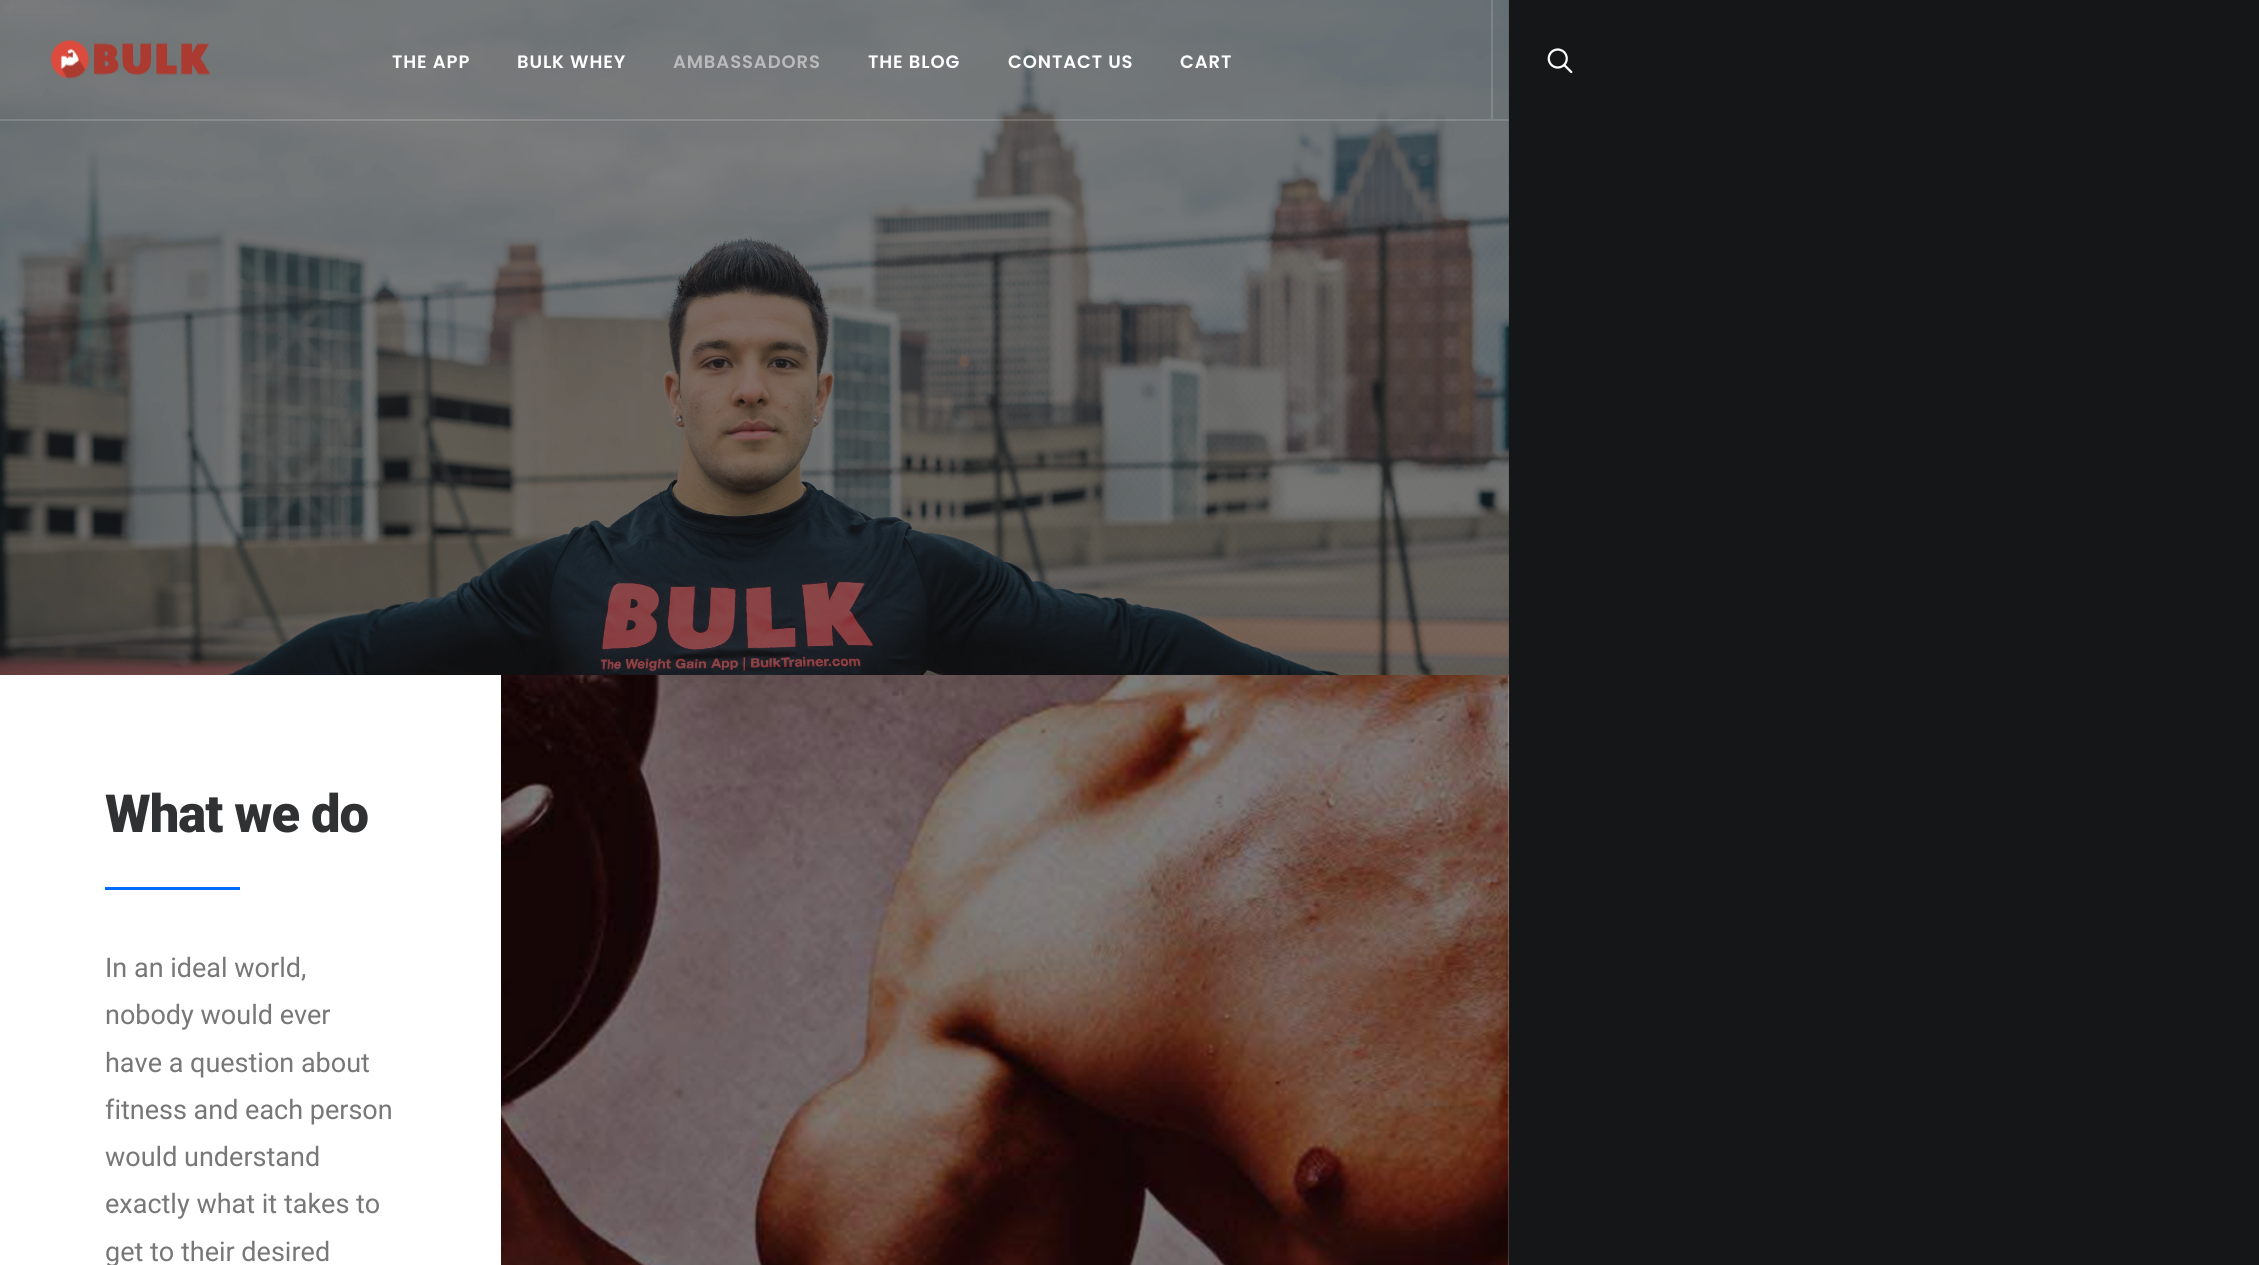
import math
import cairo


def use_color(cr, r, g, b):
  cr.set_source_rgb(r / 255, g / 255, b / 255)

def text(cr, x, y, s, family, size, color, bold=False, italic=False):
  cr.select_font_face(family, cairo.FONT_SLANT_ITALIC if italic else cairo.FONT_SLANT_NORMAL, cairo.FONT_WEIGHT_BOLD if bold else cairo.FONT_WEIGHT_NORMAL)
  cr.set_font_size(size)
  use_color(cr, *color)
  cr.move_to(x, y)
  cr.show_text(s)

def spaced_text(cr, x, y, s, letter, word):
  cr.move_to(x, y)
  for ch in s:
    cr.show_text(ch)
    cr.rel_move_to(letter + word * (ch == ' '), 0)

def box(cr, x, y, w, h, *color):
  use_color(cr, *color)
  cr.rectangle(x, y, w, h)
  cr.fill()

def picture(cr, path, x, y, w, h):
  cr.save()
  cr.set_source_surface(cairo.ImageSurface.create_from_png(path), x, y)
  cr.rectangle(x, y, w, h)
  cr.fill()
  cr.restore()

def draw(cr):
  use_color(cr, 20, 22, 24)
  cr.paint()
  picture(cr, "img_03.png", 0, 0, 1509, 675)
  cr.set_source_rgba(1, 1, 1, 0.15)
  cr.rectangle(0, 119, 1509, 2)
  cr.fill()
  picture(cr, "img_01.png", 51, 40, 159, 39)
  cr.rectangle(1491, 0, 2, 119)
  cr.fill()
  picture(cr, "img_02.png", 1547, 48, 26, 26)
  box(cr, 0, 675, 1509, 590, 255, 255, 255)
  box(cr, 105, 887, 135, 3, 0, 108, 255)
  picture(cr, "img_04.png", 501, 675, 1008, 590)
  cr.select_font_face("Poppins SemiBold")
  cr.set_font_size(18)
  use_color(cr, 255, 255, 255)
  spaced_text(cr, 392, 68, "THE APP", 0.9, 0)
  spaced_text(cr, 517, 68, "BULK WHEY", 0.9, 0)
  use_color(cr, 185, 187, 188)
  spaced_text(cr, 673, 68, "AMBASSADORS", 0.9, 0)
  use_color(cr, 255, 255, 255)
  spaced_text(cr, 868, 68, "THE BLOG", 0.9, 0)
  spaced_text(cr, 1008, 68, "CONTACT US", 0.9, 0)
  spaced_text(cr, 1180, 68, "CART", 0.9, 0)
  cr.select_font_face("Roboto Black")
  cr.set_font_size(52.5)
  use_color(cr, 48, 49, 51)
  spaced_text(cr, 105, 832, "What we do", -1, 0)
  text(cr, 105, 977, "In an ideal world,", "Roboto", 27, (119, 119, 119))
  text(cr, 105, 1024, "nobody would ever", "Roboto", 27, (119, 119, 119))
  text(cr, 105, 1072, "have a question about", "Roboto", 27, (119, 119, 119))
  text(cr, 105, 1119, "fitness and each person", "Roboto", 27, (119, 119, 119))
  text(cr, 105, 1166, "would understand", "Roboto", 27, (119, 119, 119))
  text(cr, 105, 1213, "exactly what it takes to", "Roboto", 27, (119, 119, 119))
  text(cr, 105, 1261, "get to their desired", "Roboto", 27, (119, 119, 119))


surface = cairo.ImageSurface(cairo.FORMAT_RGB24, 2259, 1265)
cr = cairo.Context(surface)
options = cairo.FontOptions()
options.set_hint_metrics(cairo.HINT_METRICS_OFF)
options.set_hint_style(cairo.HINT_STYLE_NONE)
cr.set_font_options(options)
cr.set_miter_limit(4)
draw(cr)
surface.write_to_png("out.png")
